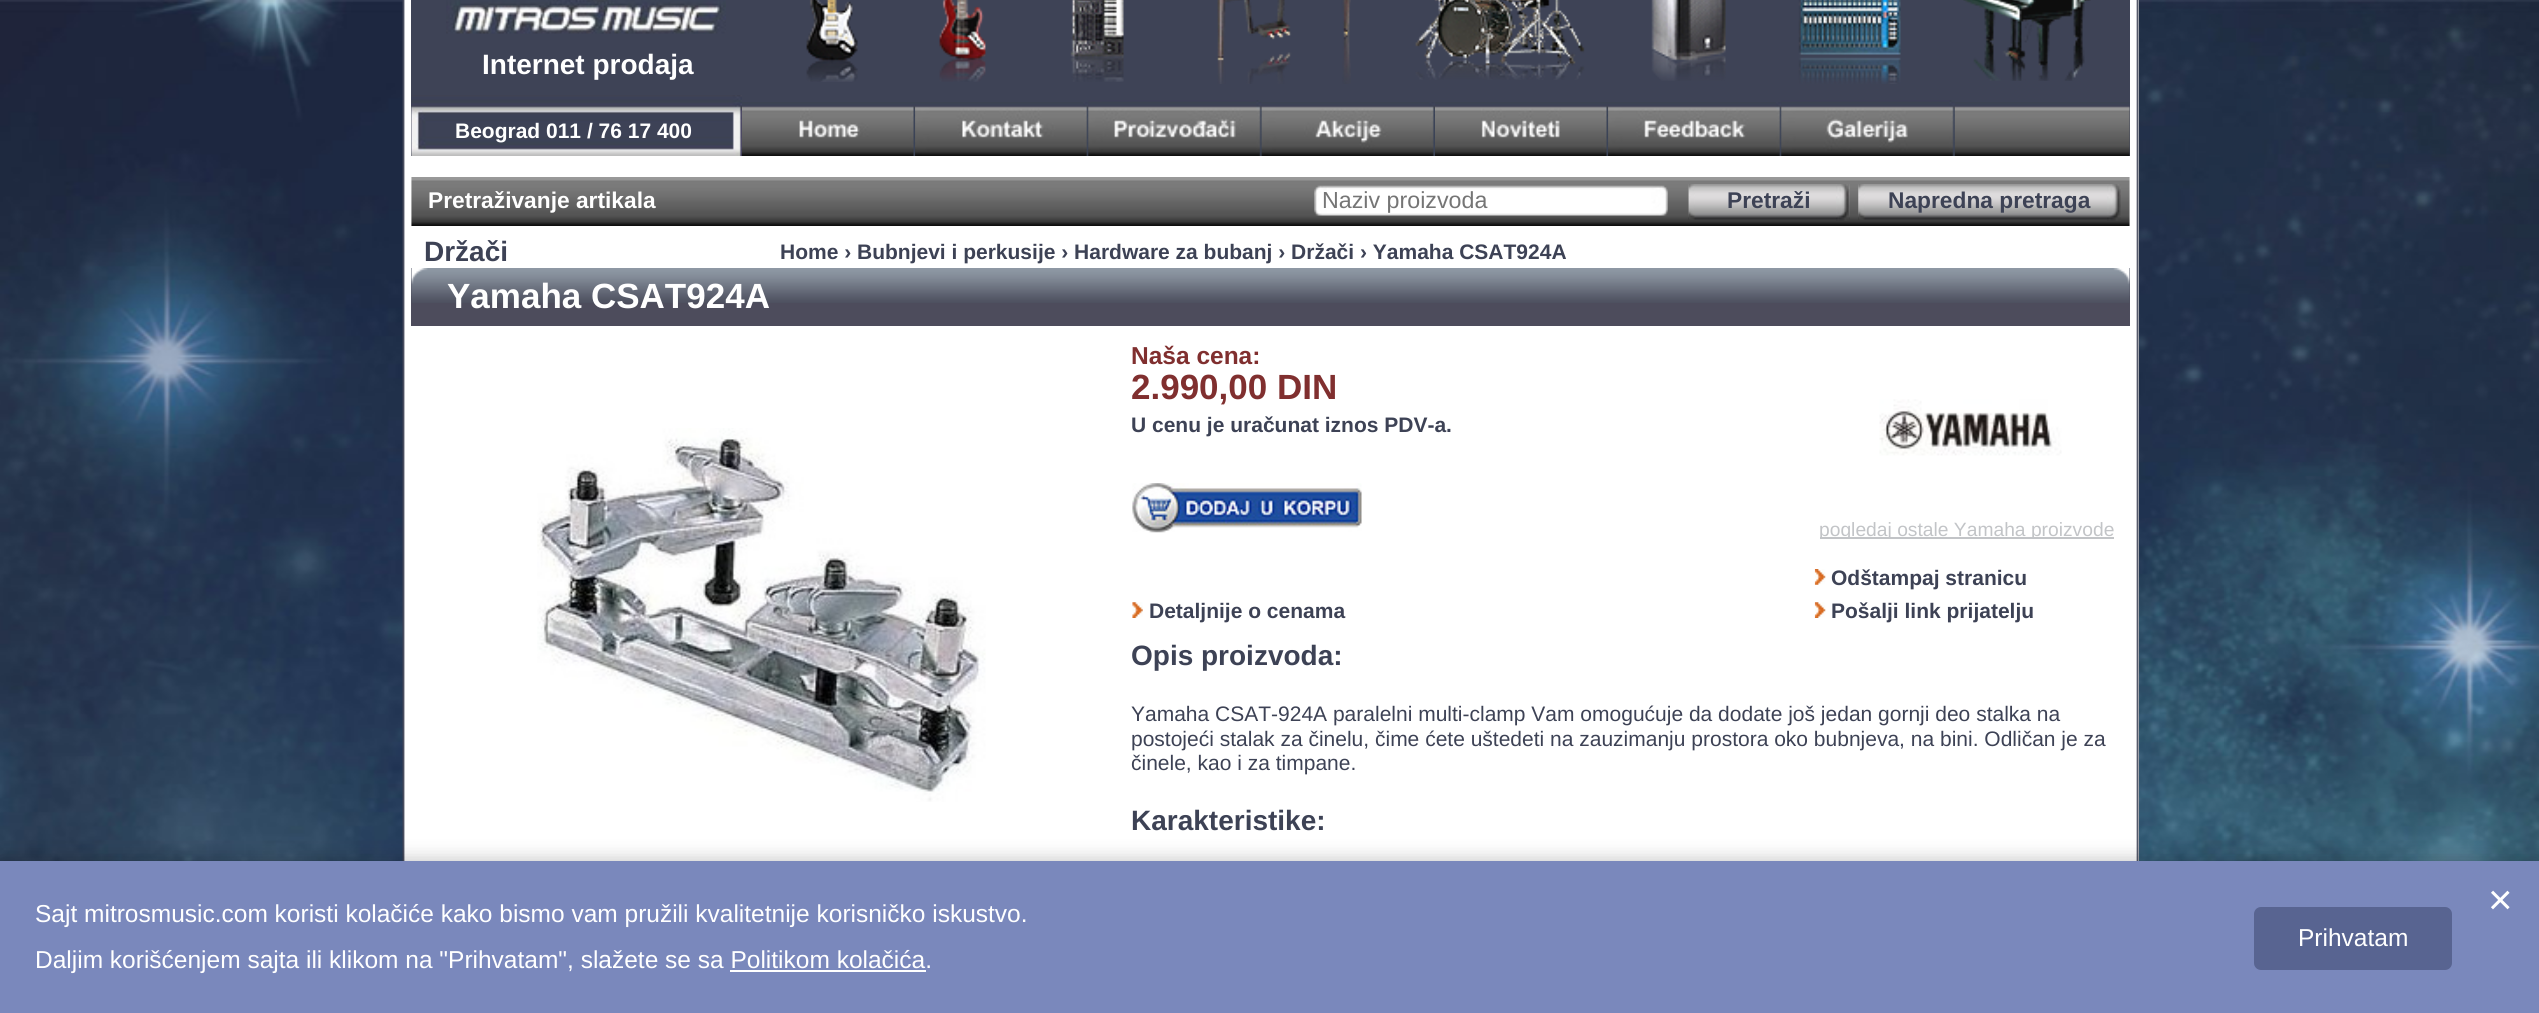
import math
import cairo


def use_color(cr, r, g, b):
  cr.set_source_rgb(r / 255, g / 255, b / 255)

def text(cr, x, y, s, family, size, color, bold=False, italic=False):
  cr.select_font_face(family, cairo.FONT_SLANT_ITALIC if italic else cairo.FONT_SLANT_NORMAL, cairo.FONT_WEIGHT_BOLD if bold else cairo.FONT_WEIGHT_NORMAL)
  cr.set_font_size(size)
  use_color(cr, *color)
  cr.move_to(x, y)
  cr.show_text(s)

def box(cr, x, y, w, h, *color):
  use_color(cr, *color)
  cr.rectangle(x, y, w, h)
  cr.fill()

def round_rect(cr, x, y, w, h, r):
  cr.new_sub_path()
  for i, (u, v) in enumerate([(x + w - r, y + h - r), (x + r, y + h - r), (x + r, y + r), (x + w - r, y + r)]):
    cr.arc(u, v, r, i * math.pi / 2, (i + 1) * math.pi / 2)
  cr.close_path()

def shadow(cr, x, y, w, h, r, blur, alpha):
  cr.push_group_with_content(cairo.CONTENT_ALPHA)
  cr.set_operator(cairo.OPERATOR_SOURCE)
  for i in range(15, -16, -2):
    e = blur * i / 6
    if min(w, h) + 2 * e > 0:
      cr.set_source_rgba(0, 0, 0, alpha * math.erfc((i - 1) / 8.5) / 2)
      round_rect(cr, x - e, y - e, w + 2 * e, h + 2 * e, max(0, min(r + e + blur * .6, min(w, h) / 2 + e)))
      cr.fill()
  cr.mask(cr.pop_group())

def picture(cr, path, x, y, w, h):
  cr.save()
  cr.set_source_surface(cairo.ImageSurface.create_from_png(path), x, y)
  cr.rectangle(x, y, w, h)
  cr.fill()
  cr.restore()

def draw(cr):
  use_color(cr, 255, 255, 255)
  cr.paint()
  picture(cr, "img_01.png", 0, 0, 2539, 861)
  box(cr, 2138, 0, 1, 861, 255, 255, 255)
  picture(cr, "img_02.png", 402, 0, 1737, 861)
  box(cr, 411, 0, 1719, 156, 62, 67, 86)
  picture(cr, "img_03.png", 446, 0, 280, 34)
  picture(cr, "img_04.png", 806, 0, 52, 82)
  picture(cr, "img_05.png", 939, 0, 47, 82)
  picture(cr, "img_06.png", 1070, 0, 54, 82)
  picture(cr, "img_07.png", 1217, 0, 134, 84)
  picture(cr, "img_08.png", 1415, 0, 170, 80)
  picture(cr, "img_09.png", 1651, 0, 75, 81)
  picture(cr, "img_10.png", 1798, 0, 103, 84)
  picture(cr, "img_11.png", 1963, 0, 128, 81)
  picture(cr, "img_12.png", 411, 95, 331, 61)
  picture(cr, "img_13.png", 742, 102, 1388, 54)
  picture(cr, "img_14.png", 799, 106, 117, 50)
  picture(cr, "img_15.png", 915, 102, 174, 54)
  picture(cr, "img_16.png", 1088, 100, 174, 56)
  picture(cr, "img_17.png", 1261, 102, 174, 54)
  picture(cr, "img_18.png", 1481, 106, 128, 50)
  picture(cr, "img_19.png", 1608, 102, 174, 54)
  picture(cr, "img_20.png", 1781, 100, 174, 56)
  picture(cr, "img_21.png", 411, 177, 1719, 49)
  picture(cr, "img_22.png", 1314, 185, 354, 31)
  picture(cr, "img_23.png", 1688, 184, 162, 36)
  picture(cr, "img_24.png", 1688, 184, 7, 36)
  picture(cr, "img_25.png", 1836, 184, 14, 37)
  picture(cr, "img_26.png", 1858, 184, 249, 36)
  picture(cr, "img_27.png", 1858, 184, 7, 36)
  picture(cr, "img_28.png", 2107, 184, 14, 37)
  box(cr, 411, 268, 1719, 58, 77, 76, 92)
  picture(cr, "img_29.png", 411, 268, 1719, 35)
  picture(cr, "img_30.png", 411, 268, 17, 28)
  picture(cr, "img_31.png", 2113, 268, 17, 28)
  picture(cr, "img_32.png", 537, 428, 449, 374)
  picture(cr, "img_33.png", 1132, 483, 230, 50)
  picture(cr, "img_34.png", 1879, 399, 183, 57)
  box(cr, 1820, 537, 294, 2, 194, 196, 199)
  picture(cr, "img_35.png", 1814, 569, 12, 16)
  picture(cr, "img_36.png", 1132, 602, 11, 16)
  picture(cr, "img_37.png", 1814, 602, 12, 16)
  use_color(cr, 0, 0, 0)
  shadow(cr, 0, 858, 2539, 152, 0, 9, 0.2)
  box(cr, 0, 861, 2539, 152, 122, 136, 188)
  box(cr, 730, 970, 196, 2, 255, 255, 255)
  use_color(cr, 88, 100, 145)
  round_rect(cr, 2254, 907, 198, 63, 7)
  cr.fill()
  text(cr, 482, 74, "Internet prodaja", "Liberation Sans", 28, (255, 255, 255), bold=True)
  text(cr, 455, 138, "Beograd 011 / 76 17 400", "Liberation Sans", 21, (255, 255, 255), bold=True)
  text(cr, 428, 208, "Pretraživanje artikala", "Liberation Sans", 22.75, (255, 255, 255), bold=True)
  text(cr, 1322, 208, "Naziv proizvoda", "Liberation Sans", 23.25, (117, 117, 117))
  text(cr, 1727, 208, "Pretraži", "Liberation Sans", 22.75, (61, 66, 85), bold=True)
  text(cr, 1888, 208, "Napredna pretraga", "Liberation Sans", 22.75, (61, 66, 85), bold=True)
  text(cr, 424, 261, "Držači", "Liberation Sans", 28, (61, 66, 85), bold=True)
  text(cr, 780, 259, "Home › Bubnjevi i perkusije › Hardware za bubanj › Držači › Yamaha CSAT924A", "Liberation Sans", 21, (61, 66, 85), bold=True)
  text(cr, 447, 308, "Yamaha CSAT924A", "Liberation Sans", 35, (255, 255, 255), bold=True)
  text(cr, 1131, 364, "Naša cena:", "Liberation Sans", 24.5, (128, 47, 47), bold=True)
  text(cr, 1131, 399, "2.990,00 DIN", "Liberation Sans", 35, (128, 47, 47), bold=True)
  text(cr, 1131, 432, "U cenu je uračunat iznos PDV-a.", "Liberation Sans", 21, (61, 66, 85), bold=True)
  cr.save()
  cr.rectangle(1815, 343, 306, 196)
  cr.clip()
  text(cr, 1819, 536, "pogledaj ostale Yamaha proizvode", "Liberation Sans", 19.25, (194, 196, 199))
  cr.restore()
  text(cr, 1831, 585, "Odštampaj stranicu", "Liberation Sans", 21, (61, 66, 85), bold=True)
  text(cr, 1149, 618, "Detaljnije o cenama", "Liberation Sans", 21, (61, 66, 85), bold=True)
  text(cr, 1831, 618, "Pošalji link prijatelju", "Liberation Sans", 21, (61, 66, 85), bold=True)
  text(cr, 1131, 665, "Opis proizvoda:", "Liberation Sans", 28, (61, 66, 85), bold=True)
  text(cr, 1131, 721, "Yamaha CSAT-924A paralelni multi-clamp Vam omogućuje da dodate još jedan gornji deo stalka na", "Liberation Sans", 21, (61, 66, 85))
  text(cr, 1131, 746, "postojeći stalak za činelu, čime ćete uštedeti na zauzimanju prostora oko bubnjeva, na bini. Odličan je za", "Liberation Sans", 21, (61, 66, 85))
  text(cr, 1131, 770, "činele, kao i za timpane.", "Liberation Sans", 21, (61, 66, 85))
  text(cr, 1131, 830, "Karakteristike:", "Liberation Sans", 28, (61, 66, 85), bold=True)
  text(cr, 2488, 914, "×", "Liberation Sans", 42, (255, 255, 255))
  text(cr, 35, 922, "Sajt mitrosmusic.com koristi kolačiće kako bismo vam pružili kvalitetnije korisničko iskustvo.", "Liberation Sans", 24.5, (255, 255, 255))
  text(cr, 35, 968, "Daljim korišćenjem sajta ili klikom na \"Prihvatam\", slažete se sa Politikom kolačića.", "Liberation Sans", 24.5, (255, 255, 255))
  text(cr, 2298, 946, "Prihvatam", "Liberation Sans", 24.5, (255, 255, 255))


surface = cairo.ImageSurface(cairo.FORMAT_RGB24, 2539, 1013)
cr = cairo.Context(surface)
options = cairo.FontOptions()
options.set_hint_metrics(cairo.HINT_METRICS_OFF)
options.set_hint_style(cairo.HINT_STYLE_NONE)
cr.set_font_options(options)
cr.set_miter_limit(4)
draw(cr)
surface.write_to_png("out.png")
